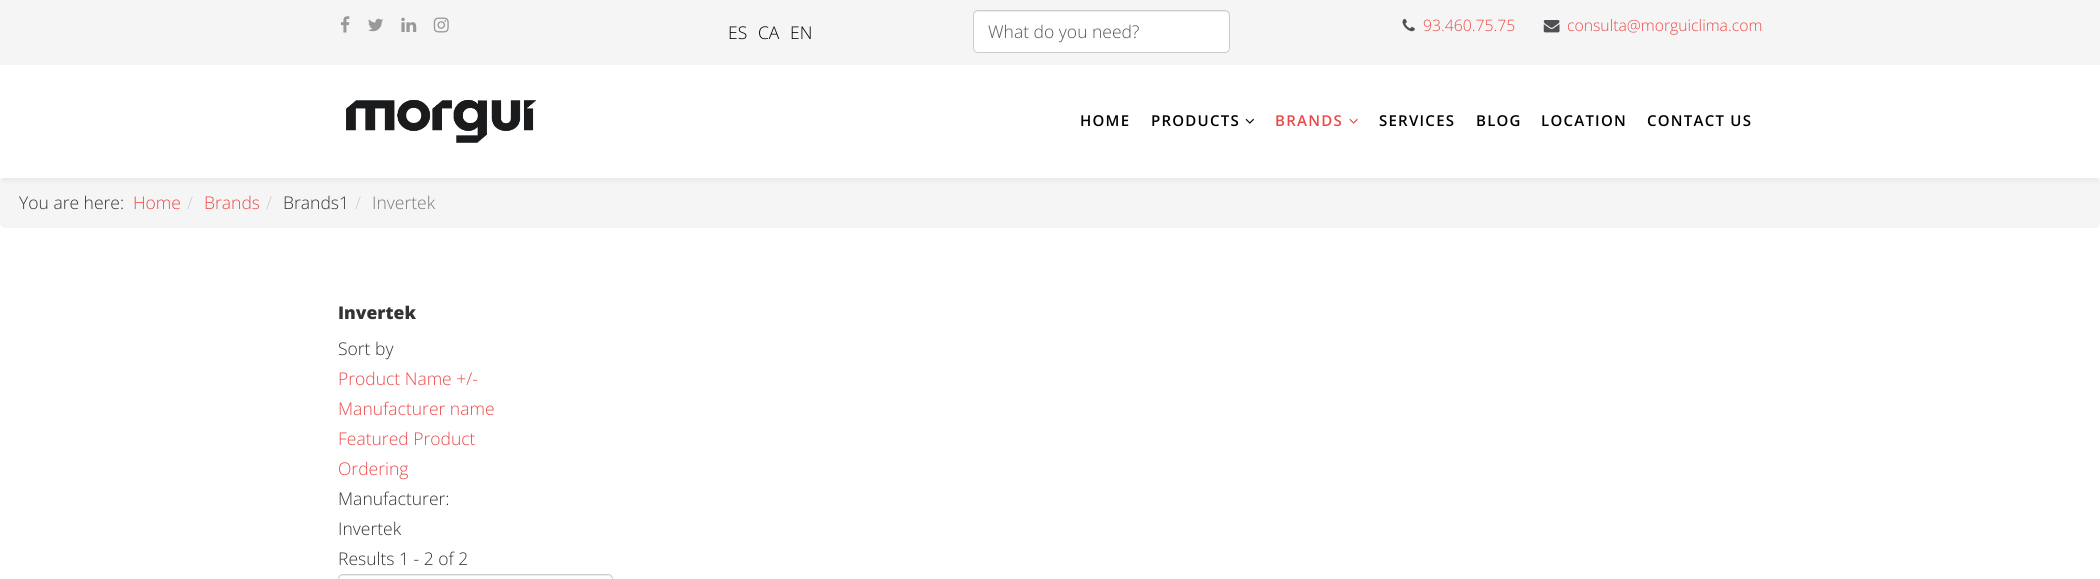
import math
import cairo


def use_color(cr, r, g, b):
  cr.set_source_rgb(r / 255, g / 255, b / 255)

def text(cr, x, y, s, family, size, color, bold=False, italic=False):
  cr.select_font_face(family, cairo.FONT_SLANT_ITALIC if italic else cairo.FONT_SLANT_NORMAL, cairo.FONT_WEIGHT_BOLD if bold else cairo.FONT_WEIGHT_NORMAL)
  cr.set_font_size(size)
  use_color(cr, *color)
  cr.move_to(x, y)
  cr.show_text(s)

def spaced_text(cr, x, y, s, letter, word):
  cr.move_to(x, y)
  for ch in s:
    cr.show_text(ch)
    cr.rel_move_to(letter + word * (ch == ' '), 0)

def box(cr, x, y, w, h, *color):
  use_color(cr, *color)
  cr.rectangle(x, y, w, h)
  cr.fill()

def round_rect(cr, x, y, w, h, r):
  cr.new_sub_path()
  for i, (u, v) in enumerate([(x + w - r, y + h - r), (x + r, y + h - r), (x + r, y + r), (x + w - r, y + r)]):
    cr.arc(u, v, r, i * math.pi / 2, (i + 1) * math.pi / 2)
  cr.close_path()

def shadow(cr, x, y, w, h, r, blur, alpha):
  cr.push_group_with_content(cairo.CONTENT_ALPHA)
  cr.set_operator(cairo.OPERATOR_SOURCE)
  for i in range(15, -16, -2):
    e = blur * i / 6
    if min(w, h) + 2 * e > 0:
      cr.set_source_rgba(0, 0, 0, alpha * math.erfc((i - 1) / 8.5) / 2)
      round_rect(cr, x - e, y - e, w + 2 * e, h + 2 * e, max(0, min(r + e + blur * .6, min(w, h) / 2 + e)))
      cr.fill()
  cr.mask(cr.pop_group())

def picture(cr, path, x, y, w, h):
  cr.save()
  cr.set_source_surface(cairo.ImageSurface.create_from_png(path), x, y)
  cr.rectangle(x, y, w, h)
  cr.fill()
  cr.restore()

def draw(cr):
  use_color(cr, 255, 255, 255)
  cr.paint()
  box(cr, 0, 0, 2100, 65, 245, 245, 245)
  picture(cr, "img_01.png", 340, 16, 10, 17)
  picture(cr, "img_02.png", 368, 18, 16, 14)
  picture(cr, "img_03.png", 401, 17, 16, 15)
  picture(cr, "img_04.png", 433, 17, 16, 16)
  use_color(cr, 255, 255, 255)
  round_rect(cr, 973, 10, 257, 43, 5)
  cr.fill()
  use_color(cr, 236, 236, 236)
  cr.new_path()
  cr.move_to(978, 12)
  cr.line_to(1225, 12)
  cr.curve_to(1227, 12, 1229, 14, 1229, 16)
  cr.line_to(1229, 15)
  cr.curve_to(1229, 13, 1227, 11, 1225, 11)
  cr.line_to(978, 11)
  cr.curve_to(976, 11, 974, 13, 974, 15)
  cr.line_to(974, 16)
  cr.curve_to(974, 14, 975, 12, 978, 12)
  cr.close_path()
  cr.fill()
  round_rect(cr, 973.5, 10.5, 256, 42, 4.5)
  use_color(cr, 204, 204, 204)
  cr.set_line_width(1)
  cr.stroke()
  picture(cr, "img_05.png", 1402, 18, 13, 14)
  picture(cr, "img_06.png", 1543, 20, 17, 13)
  use_color(cr, 245, 245, 245)
  round_rect(cr, 0, 178, 2100, 50, 5)
  cr.fill()
  use_color(cr, 0, 0, 0)
  shadow(cr, 0, 69, 2100, 112, 0, 2, 0.05)
  box(cr, 0, 67, 2100, 111, 255, 255, 255)
  picture(cr, "img_07.png", 346, 100, 190, 43)
  picture(cr, "img_08.png", 1245, 118, 9, 6)
  picture(cr, "img_09.png", 1349, 118, 9, 6)
  use_color(cr, 236, 236, 236)
  cr.new_path()
  cr.move_to(342, 576)
  cr.line_to(608, 576)
  cr.curve_to(610, 576, 611, 578, 611, 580)
  cr.curve_to(611, 577, 610, 575, 607, 575)
  cr.line_to(343, 575)
  cr.curve_to(340, 575, 339, 577, 339, 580)
  cr.curve_to(339, 578, 340, 576, 342, 576)
  cr.close_path()
  cr.fill()
  round_rect(cr, 338.5, 574.5, 274, 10, 4.5)
  use_color(cr, 204, 204, 204)
  cr.stroke()
  text(cr, 728, 39, "ES", "Open Sans Light", 17.5, (0, 0, 0))
  text(cr, 758, 39, "CA", "Open Sans Light", 17.5, (0, 0, 0))
  text(cr, 790, 39, "EN", "Open Sans Light", 17.5, (0, 0, 0))
  text(cr, 988, 38, "What do you need?", "Open Sans Light", 17.5, (85, 85, 85))
  text(cr, 1423, 31, "93.460.75.75", "Open Sans Light", 15.75, (235, 73, 71))
  text(cr, 1567, 31, "consulta@morguiclima.com", "Open Sans Light", 15.75, (235, 73, 71))
  cr.select_font_face("Open Sans SemiBold")
  cr.set_font_size(15)
  use_color(cr, 0, 0, 0)
  spaced_text(cr, 1080, 126, "HOME", 1.25, 0)
  spaced_text(cr, 1151, 126, "PRODUCTS", 1.25, 0)
  use_color(cr, 235, 73, 71)
  spaced_text(cr, 1275, 126, "BRANDS", 1.25, 0)
  use_color(cr, 0, 0, 0)
  spaced_text(cr, 1379, 126, "SERVICES", 1.25, 0)
  spaced_text(cr, 1476, 126, "BLOG", 1.25, 0)
  spaced_text(cr, 1541, 126, "LOCATION", 1.25, 0)
  spaced_text(cr, 1647, 126, "CONTACT US", 1.25, 0)
  text(cr, 19, 209, "You are here:", "Open Sans Light", 17.5, (51, 51, 51))
  text(cr, 133, 209, "Home", "Open Sans Light", 17.5, (235, 73, 71))
  text(cr, 187, 209, "/", "Open Sans Light", 17.5, (204, 204, 204))
  text(cr, 204, 209, "Brands", "Open Sans Light", 17.5, (235, 73, 71))
  text(cr, 266, 209, "/", "Open Sans Light", 17.5, (204, 204, 204))
  text(cr, 283, 209, "Brands1", "Open Sans Light", 17.5, (51, 51, 51))
  text(cr, 355, 209, "/", "Open Sans Light", 17.5, (204, 204, 204))
  text(cr, 372, 209, "Invertek", "Open Sans Light", 17.5, (119, 119, 119))
  text(cr, 338, 319, "Invertek", "Open Sans ExtraBold", 17.5, (51, 51, 51))
  text(cr, 338, 355, "Sort by", "Open Sans Light", 17.5, (51, 51, 51))
  text(cr, 338, 385, "Product Name +/-", "Open Sans Light", 17.5, (235, 73, 71))
  text(cr, 338, 415, "Manufacturer name", "Open Sans Light", 17.5, (235, 73, 71))
  text(cr, 338, 445, "Featured Product", "Open Sans Light", 17.5, (235, 73, 71))
  text(cr, 338, 475, "Ordering", "Open Sans Light", 17.5, (235, 73, 71))
  text(cr, 338, 505, "Manufacturer:", "Open Sans Light", 17.5, (51, 51, 51))
  text(cr, 338, 535, "Invertek", "Open Sans Light", 17.5, (51, 51, 51))
  text(cr, 338, 565, "Results 1 - 2 of 2", "Open Sans Light", 17.5, (51, 51, 51))


surface = cairo.ImageSurface(cairo.FORMAT_RGB24, 2100, 579)
cr = cairo.Context(surface)
options = cairo.FontOptions()
options.set_hint_metrics(cairo.HINT_METRICS_OFF)
options.set_hint_style(cairo.HINT_STYLE_NONE)
cr.set_font_options(options)
cr.set_miter_limit(4)
draw(cr)
surface.write_to_png("out.png")
